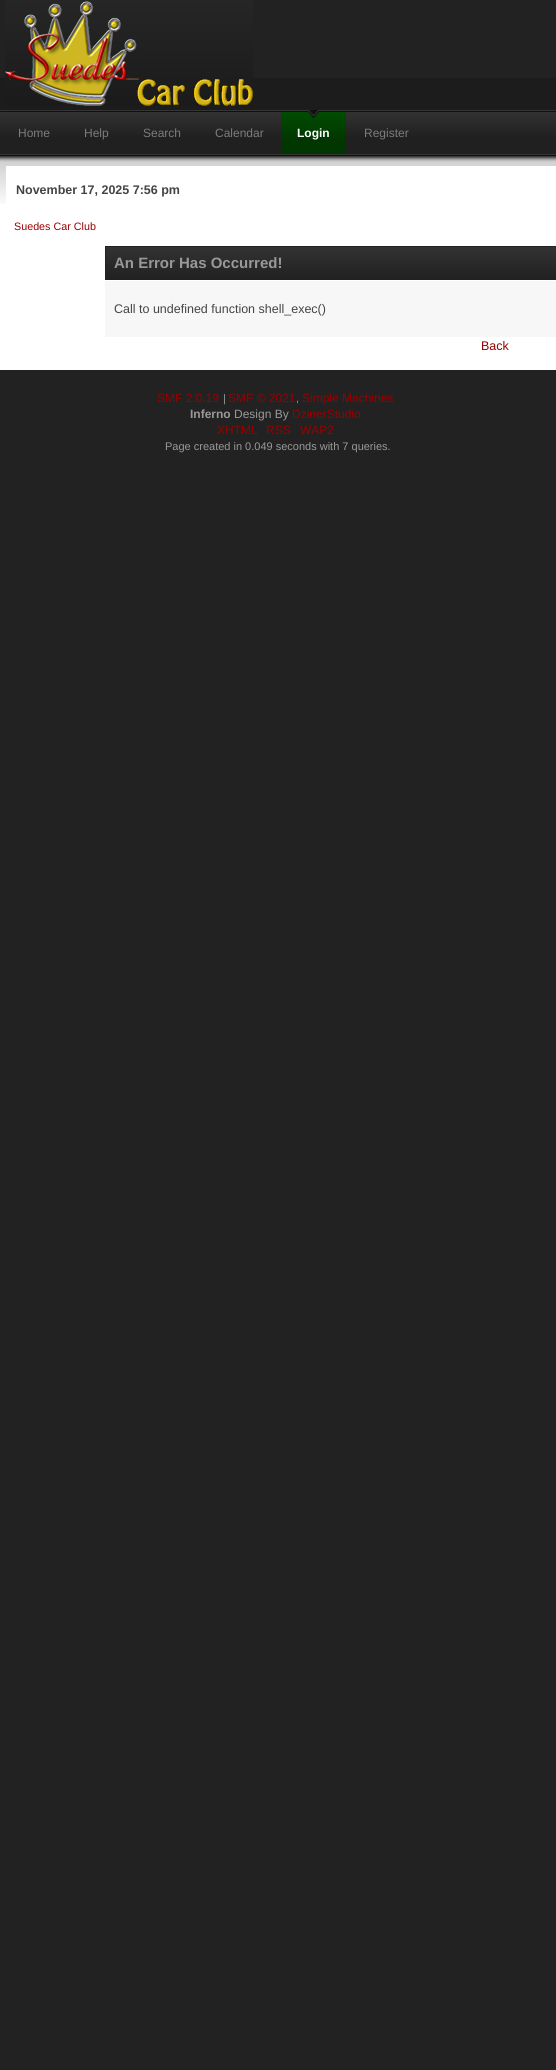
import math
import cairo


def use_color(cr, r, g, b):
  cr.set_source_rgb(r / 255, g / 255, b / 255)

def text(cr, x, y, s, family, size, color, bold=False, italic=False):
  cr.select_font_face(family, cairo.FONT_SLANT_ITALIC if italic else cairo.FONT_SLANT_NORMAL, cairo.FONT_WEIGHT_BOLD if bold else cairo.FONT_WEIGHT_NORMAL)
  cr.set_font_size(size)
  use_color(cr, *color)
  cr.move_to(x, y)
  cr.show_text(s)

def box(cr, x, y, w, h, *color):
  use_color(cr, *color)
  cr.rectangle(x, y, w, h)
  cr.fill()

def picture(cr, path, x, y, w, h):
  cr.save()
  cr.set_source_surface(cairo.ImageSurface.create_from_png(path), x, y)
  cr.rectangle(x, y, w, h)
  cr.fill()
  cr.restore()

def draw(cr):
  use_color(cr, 34, 34, 34)
  cr.paint()
  box(cr, 0, 78, 556, 32, 28, 28, 28)
  picture(cr, "img_01.png", 5, 0, 248, 106)
  picture(cr, "img_02.png", 0, 110, 556, 46)
  picture(cr, "img_03.png", 281, 110, 65, 44)
  box(cr, 0, 204, 556, 166, 255, 255, 255)
  picture(cr, "img_04.png", 0, 156, 556, 48)
  box(cr, 6, 166, 550, 38, 255, 255, 255)
  picture(cr, "img_05.png", 105, 246, 451, 34)
  box(cr, 105, 281, 451, 56, 247, 247, 247)
  text(cr, 18, 137, "Home", "Liberation Sans", 12, (124, 124, 124))
  text(cr, 84, 137, "Help", "Liberation Sans", 12, (124, 124, 124))
  text(cr, 143, 137, "Search", "Liberation Sans", 12, (124, 124, 124))
  text(cr, 215, 137, "Calendar", "Liberation Sans", 12, (124, 124, 124))
  text(cr, 297, 137, "Login", "Liberation Sans", 12, (255, 255, 255), bold=True)
  text(cr, 364, 137, "Register", "Liberation Sans", 12, (124, 124, 124))
  text(cr, 16, 194, "November 17, 2025 7:56 pm", "Liberation Sans", 12.5, (68, 68, 68), bold=True)
  text(cr, 14, 230, "Suedes Car Club", "Liberation Sans", 10.75, (152, 0, 0))
  text(cr, 114, 268, "An Error Has Occurred!", "Liberation Sans", 15, (153, 153, 153), bold=True)
  text(cr, 114, 313, "Call to undefined function shell_exec()", "Liberation Sans", 12.5, (68, 68, 68))
  text(cr, 481, 350, "Back", "Liberation Sans", 12.5, (152, 0, 0))
  text(cr, 157, 402, "SMF 2.0.19", "Liberation Sans", 12, (152, 0, 0))
  text(cr, 223, 402, "|", "Liberation Sans", 11, (153, 153, 153))
  text(cr, 228, 402, "SMF © 2021", "Liberation Sans", 12, (152, 0, 0))
  text(cr, 296, 402, ",", "Liberation Sans", 11, (153, 153, 153))
  text(cr, 302, 402, "Simple Machines", "Liberation Sans", 12, (152, 0, 0))
  text(cr, 190, 418, "Inferno", "Liberation Sans", 12, (153, 153, 153), bold=True)
  text(cr, 234, 418, "Design By", "Liberation Sans", 12, (153, 153, 153))
  text(cr, 292, 418, "DzinerStudio", "Liberation Sans", 12, (152, 0, 0))
  text(cr, 217, 434, "XHTML", "Liberation Sans", 12, (152, 0, 0))
  text(cr, 266, 434, "RSS", "Liberation Sans", 12, (152, 0, 0))
  text(cr, 300, 434, "WAP2", "Liberation Sans", 12, (152, 0, 0))
  text(cr, 165, 450, "Page created in 0.049 seconds with 7 queries.", "Liberation Sans", 11, (153, 153, 153))


surface = cairo.ImageSurface(cairo.FORMAT_RGB24, 556, 2070)
cr = cairo.Context(surface)
options = cairo.FontOptions()
options.set_hint_metrics(cairo.HINT_METRICS_OFF)
options.set_hint_style(cairo.HINT_STYLE_NONE)
cr.set_font_options(options)
cr.set_miter_limit(4)
draw(cr)
surface.write_to_png("out.png")
